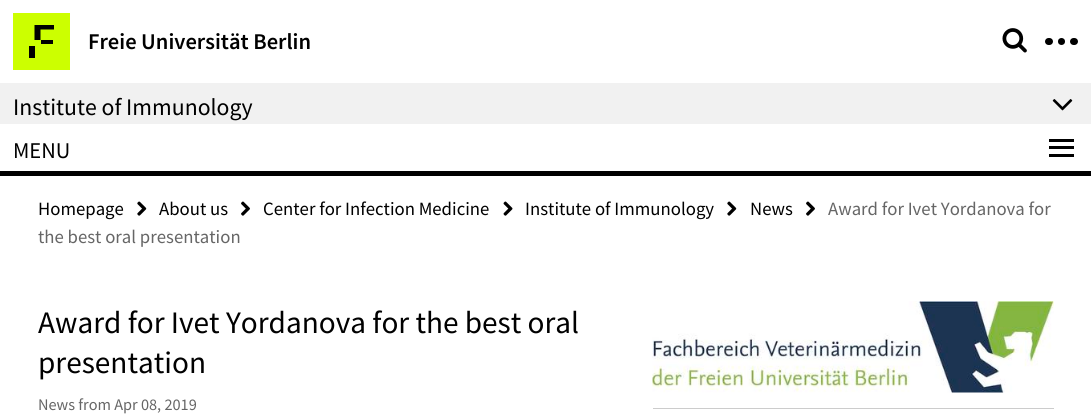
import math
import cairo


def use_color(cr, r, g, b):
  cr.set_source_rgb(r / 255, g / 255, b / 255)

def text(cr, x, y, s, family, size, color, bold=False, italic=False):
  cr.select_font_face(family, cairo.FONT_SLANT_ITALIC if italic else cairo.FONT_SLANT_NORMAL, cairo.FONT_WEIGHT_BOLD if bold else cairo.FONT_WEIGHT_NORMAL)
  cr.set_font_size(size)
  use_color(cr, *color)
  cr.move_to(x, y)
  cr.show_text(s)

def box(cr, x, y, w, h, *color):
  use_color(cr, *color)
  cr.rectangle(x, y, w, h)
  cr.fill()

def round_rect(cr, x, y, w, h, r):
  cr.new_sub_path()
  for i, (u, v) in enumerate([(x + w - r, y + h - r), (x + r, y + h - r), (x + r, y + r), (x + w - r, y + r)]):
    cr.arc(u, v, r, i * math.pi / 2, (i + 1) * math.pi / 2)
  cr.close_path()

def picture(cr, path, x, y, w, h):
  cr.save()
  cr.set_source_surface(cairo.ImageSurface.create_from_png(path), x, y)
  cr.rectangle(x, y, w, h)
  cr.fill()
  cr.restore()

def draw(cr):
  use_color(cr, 255, 255, 255)
  cr.paint()
  box(cr, 13, 13, 57, 57, 204, 255, 0)
  use_color(cr, 0, 0, 0)
  cr.new_path()
  cr.move_to(34.5, 25)
  cr.line_to(54, 25)
  cr.line_to(54, 29.5)
  cr.line_to(40.5, 29.5)
  cr.line_to(40.5, 40)
  cr.line_to(34.5, 40)
  cr.close_path()
  cr.fill()
  box(cr, 41, 40, 12, 4, 0, 0, 0)
  box(cr, 29, 46, 6, 12, 0, 0, 0)
  picture(cr, "img_01.png", 1002, 28, 25, 25)
  round_rect(cr, 1045, 38, 8, 7, 3.5)
  cr.fill()
  cr.arc(1061.5, 41.5, 3.5, 0, 2 * math.pi)
  cr.fill()
  round_rect(cr, 1070, 38, 8, 7, 3.5)
  cr.fill()
  box(cr, 0, 83, 1091, 41, 241, 241, 241)
  picture(cr, "img_02.png", 1052, 99, 21, 12)
  box(cr, 0, 171, 1091, 5, 0, 0, 0)
  box(cr, 1049, 139, 25, 3, 0, 0, 0)
  box(cr, 1049, 146, 25, 3, 0, 0, 0)
  box(cr, 1049, 154, 25, 3, 0, 0, 0)
  picture(cr, "img_03.png", 137, 201, 10, 15)
  picture(cr, "img_04.png", 241, 201, 9, 15)
  picture(cr, "img_05.png", 503, 201, 10, 15)
  picture(cr, "img_03.png", 727, 201, 10, 15)
  picture(cr, "img_04.png", 806, 201, 9, 15)
  picture(cr, "img_06.png", 652, 301, 402, 92)
  box(cr, 653, 408, 401, 1, 204, 204, 204)
  text(cr, 88, 49, "Freie Universität Berlin", "Source Sans Pro SemiBold", 22.5, (0, 0, 0))
  text(cr, 13, 115, "Institute of Immunology", "Source Sans Pro", 23.75, (0, 0, 0))
  text(cr, 13, 158, "MENU", "Source Sans Pro", 22.5, (0, 0, 0))
  text(cr, 38, 215, "Homepage", "Source Sans Pro", 18.75, (0, 0, 0))
  text(cr, 159, 215, "About us", "Source Sans Pro", 18.75, (0, 0, 0))
  text(cr, 263, 215, "Center for Infection Medicine", "Source Sans Pro", 18.75, (0, 0, 0))
  text(cr, 525, 215, "Institute of Immunology", "Source Sans Pro", 18.75, (0, 0, 0))
  text(cr, 750, 215, "News", "Source Sans Pro", 18.75, (0, 0, 0))
  text(cr, 828, 215, "Award for Ivet Yordanova for", "Source Sans Pro", 18.75, (102, 102, 102))
  text(cr, 38, 243, "the best oral presentation", "Source Sans Pro", 18.75, (102, 102, 102))
  text(cr, 38, 333, "Award for Ivet Yordanova for the best oral", "Source Sans Pro", 31.25, (0, 0, 0))
  text(cr, 38, 373, "presentation", "Source Sans Pro", 31.25, (0, 0, 0))
  text(cr, 38, 410, "News from Apr 08, 2019", "Source Sans Pro", 16.25, (102, 102, 102))


surface = cairo.ImageSurface(cairo.FORMAT_RGB24, 1091, 416)
cr = cairo.Context(surface)
options = cairo.FontOptions()
options.set_hint_metrics(cairo.HINT_METRICS_OFF)
options.set_hint_style(cairo.HINT_STYLE_NONE)
cr.set_font_options(options)
cr.set_miter_limit(4)
draw(cr)
surface.write_to_png("out.png")
